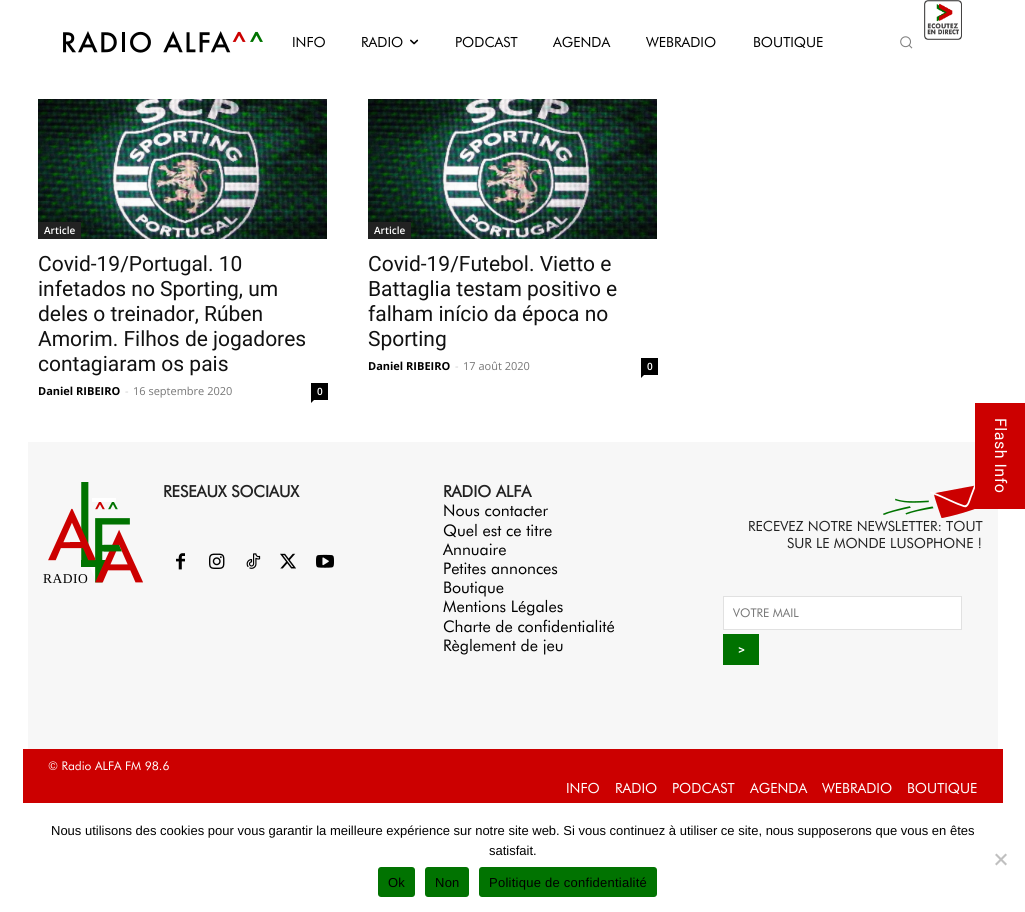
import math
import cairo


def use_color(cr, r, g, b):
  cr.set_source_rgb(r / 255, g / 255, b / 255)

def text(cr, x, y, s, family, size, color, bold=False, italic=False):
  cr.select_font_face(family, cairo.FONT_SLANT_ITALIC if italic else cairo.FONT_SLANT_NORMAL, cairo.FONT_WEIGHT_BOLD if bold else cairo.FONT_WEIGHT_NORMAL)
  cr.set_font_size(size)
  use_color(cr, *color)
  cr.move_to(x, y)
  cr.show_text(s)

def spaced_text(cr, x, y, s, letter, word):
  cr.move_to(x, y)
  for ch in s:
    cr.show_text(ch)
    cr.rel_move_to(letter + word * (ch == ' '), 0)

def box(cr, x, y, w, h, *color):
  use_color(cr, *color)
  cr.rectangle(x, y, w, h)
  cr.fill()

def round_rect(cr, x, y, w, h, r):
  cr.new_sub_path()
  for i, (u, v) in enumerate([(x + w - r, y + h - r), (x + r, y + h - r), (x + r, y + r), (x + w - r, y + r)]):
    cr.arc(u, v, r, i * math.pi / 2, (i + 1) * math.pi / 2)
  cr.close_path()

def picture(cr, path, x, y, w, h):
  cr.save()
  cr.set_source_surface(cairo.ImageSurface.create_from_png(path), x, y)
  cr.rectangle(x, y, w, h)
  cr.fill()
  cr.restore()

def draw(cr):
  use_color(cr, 255, 255, 255)
  cr.paint()
  picture(cr, "img_01.png", 63, 31, 200, 22)
  picture(cr, "img_02.png", 410, 39, 9, 6)
  picture(cr, "img_03.png", 924, 0, 38, 40)
  picture(cr, "img_04.png", 900, 36, 13, 13)
  picture(cr, "img_05.png", 38, 99, 289, 140)
  box(cr, 38, 222, 43, 17, 34, 34, 34)
  box(cr, 311, 383, 17, 17, 0, 0, 0)
  cr.new_path()
  cr.move_to(311, 400)
  cr.line_to(314, 400)
  cr.line_to(311, 403)
  cr.close_path()
  cr.fill()
  picture(cr, "img_05.png", 368, 99, 289, 140)
  box(cr, 368, 222, 43, 17, 34, 34, 34)
  box(cr, 641, 358, 17, 17, 0, 0, 0)
  cr.new_path()
  cr.move_to(641, 375)
  cr.line_to(644, 375)
  cr.line_to(641, 378)
  cr.close_path()
  cr.fill()
  box(cr, 28, 442, 970, 307, 247, 247, 247)
  picture(cr, "img_06.png", 48, 482, 95, 101)
  picture(cr, "img_07.png", 176, 553, 9, 17)
  picture(cr, "img_08.png", 209, 553, 16, 16)
  picture(cr, "img_09.png", 246, 553, 15, 16)
  picture(cr, "img_10.png", 280, 553, 16, 16)
  picture(cr, "img_11.png", 316, 554, 18, 14)
  picture(cr, "img_12.png", 883, 483, 92, 35)
  use_color(cr, 255, 255, 255)
  cr.rectangle(723.5, 596.5, 238, 33)
  cr.fill_preserve()
  use_color(cr, 225, 225, 225)
  cr.set_line_width(1)
  cr.stroke()
  box(cr, 723, 634, 36, 31, 0, 114, 0)
  box(cr, 23, 749, 980, 54, 204, 0, 0)
  box(cr, 975, 403, 50, 106, 204, 0, 0)
  use_color(cr, 192, 192, 192)
  cr.new_path()
  cr.move_to(1005.5, 853.5)
  cr.line_to(1007, 855)
  cr.line_to(996.5, 865.5)
  cr.line_to(995, 864)
  cr.close_path()
  cr.fill()
  cr.new_path()
  cr.move_to(995, 855)
  cr.line_to(996.5, 853.5)
  cr.line_to(1007, 864)
  cr.line_to(1005.5, 865.5)
  cr.close_path()
  cr.fill()
  use_color(cr, 1, 115, 1)
  round_rect(cr, 378, 867, 37, 30, 3)
  cr.fill()
  round_rect(cr, 425, 867, 44, 30, 3)
  cr.fill()
  round_rect(cr, 479, 867, 178, 30, 3)
  cr.fill()
  text(cr, 292, 47, "INFO", "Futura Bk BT", 14, (0, 0, 0))
  text(cr, 361, 47, "RADIO", "Futura Bk BT", 14, (0, 0, 0))
  text(cr, 455, 47, "PODCAST", "Futura Bk BT", 14, (0, 0, 0))
  text(cr, 553, 47, "AGENDA", "Futura Bk BT", 14, (0, 0, 0))
  text(cr, 646, 47, "WEBRADIO", "Futura Bk BT", 14, (0, 0, 0))
  text(cr, 753, 47, "BOUTIQUE", "Futura Bk BT", 14, (0, 0, 0))
  text(cr, 44, 234, "Article", "Open Sans SemiBold", 10, (255, 255, 255))
  text(cr, 38, 271, "Covid-19/Portugal. 10", "Roboto", 21, (17, 17, 17))
  text(cr, 38, 296, "infetados no Sporting, um", "Roboto", 21, (17, 17, 17))
  text(cr, 38, 321, "deles o treinador, Rúben", "Roboto", 21, (17, 17, 17))
  text(cr, 38, 346, "Amorim. Filhos de jogadores", "Roboto", 21, (17, 17, 17))
  text(cr, 38, 371, "contagiaram os pais", "Roboto", 21, (17, 17, 17))
  text(cr, 38, 395, "Daniel RIBEIRO", "Open Sans", 11, (0, 0, 0), bold=True)
  text(cr, 125, 395, "-", "Open Sans", 11, (204, 204, 204))
  text(cr, 133, 395, "16 septembre 2020", "Open Sans", 11, (118, 118, 118))
  text(cr, 317, 395, "0", "Open Sans SemiBold", 10, (255, 255, 255))
  text(cr, 374, 234, "Article", "Open Sans SemiBold", 10, (255, 255, 255))
  text(cr, 368, 271, "Covid-19/Futebol. Vietto e", "Roboto", 21, (17, 17, 17))
  text(cr, 368, 296, "Battaglia testam positivo e", "Roboto", 21, (17, 17, 17))
  text(cr, 368, 321, "falham início da época no", "Roboto", 21, (17, 17, 17))
  text(cr, 368, 346, "Sporting", "Roboto", 21, (17, 17, 17))
  text(cr, 368, 370, "Daniel RIBEIRO", "Open Sans", 11, (0, 0, 0), bold=True)
  text(cr, 455, 370, "-", "Open Sans", 11, (204, 204, 204))
  text(cr, 463, 370, "17 août 2020", "Open Sans", 11, (118, 118, 118))
  text(cr, 647, 370, "0", "Open Sans SemiBold", 10, (255, 255, 255))
  cr.select_font_face("Liberation Serif")
  cr.set_font_size(13.5)
  use_color(cr, 0, 0, 0)
  spaced_text(cr, 43, 583, "RADIO", 0.5, 0)
  text(cr, 163, 497, "RESEAUX SOCIAUX", "Futura Bk BT", 16, (34, 34, 34), bold=True)
  text(cr, 443, 497, "RADIO ALFA", "Futura Bk BT", 16, (34, 34, 34), bold=True)
  text(cr, 443, 516, "Nous contacter", "Futura Bk BT", 16, (0, 0, 0))
  text(cr, 443, 536, "Quel est ce titre", "Futura Bk BT", 16, (0, 0, 0))
  text(cr, 443, 555, "Annuaire", "Futura Bk BT", 16, (0, 0, 0))
  text(cr, 443, 574, "Petites annonces", "Futura Bk BT", 16, (0, 0, 0))
  text(cr, 443, 593, "Boutique", "Futura Bk BT", 16, (0, 0, 0))
  text(cr, 443, 612, "Mentions Légales", "Futura Bk BT", 16, (0, 0, 0))
  text(cr, 443, 632, "Charte de confidentialité", "Futura Bk BT", 16, (0, 0, 0))
  text(cr, 443, 651, "Règlement de jeu", "Futura Bk BT", 16, (0, 0, 0))
  text(cr, 748, 531, "RECEVEZ NOTRE NEWSLETTER: TOUT", "Futura Bk BT", 14, (34, 34, 34))
  text(cr, 787, 548, "SUR LE MONDE LUSOPHONE !", "Futura Bk BT", 14, (34, 34, 34))
  text(cr, 733, 617, "VOTRE MAIL", "Futura Bk BT", 12, (118, 118, 118))
  text(cr, 738, 654, ">", "Roboto Medium", 13, (255, 255, 255))
  text(cr, 48, 770, "© Radio ALFA FM 98.6", "Futura Bk BT", 12, (255, 255, 255))
  text(cr, 566, 793, "INFO", "Futura Bk BT", 14, (255, 255, 255))
  text(cr, 615, 793, "RADIO", "Futura Bk BT", 14, (255, 255, 255))
  text(cr, 672, 793, "PODCAST", "Futura Bk BT", 14, (255, 255, 255))
  text(cr, 750, 793, "AGENDA", "Futura Bk BT", 14, (255, 255, 255))
  text(cr, 822, 793, "WEBRADIO", "Futura Bk BT", 14, (255, 255, 255))
  text(cr, 907, 793, "BOUTIQUE", "Futura Bk BT", 14, (255, 255, 255))
  cr.select_font_face("Roboto")
  cr.set_font_size(16)
  cr.save()
  cr.translate(995, 418)
  cr.rotate(90 * math.pi / 180)
  spaced_text(cr, 0, 0, "Flash Info", 0.5, 0)
  cr.restore()
  text(cr, 51, 835, "Nous utilisons des cookies pour vous garantir la meilleure expérience sur notre site web. Si vous continuez à utiliser ce site, nous supposerons que vous en êtes", "Liberation Sans", 13, (0, 0, 0))
  text(cr, 489, 855, "satisfait.", "Liberation Sans", 13, (0, 0, 0))
  spaced_text(cr, 388, 887, "Ok", 0.25, 0)
  spaced_text(cr, 435, 887, "Non", 0.25, 0)
  spaced_text(cr, 489, 887, "Politique de confidentialité", 0.25, 0)


surface = cairo.ImageSurface(cairo.FORMAT_RGB24, 1025, 912)
cr = cairo.Context(surface)
options = cairo.FontOptions()
options.set_hint_metrics(cairo.HINT_METRICS_OFF)
options.set_hint_style(cairo.HINT_STYLE_NONE)
cr.set_font_options(options)
cr.set_miter_limit(4)
draw(cr)
surface.write_to_png("out.png")
